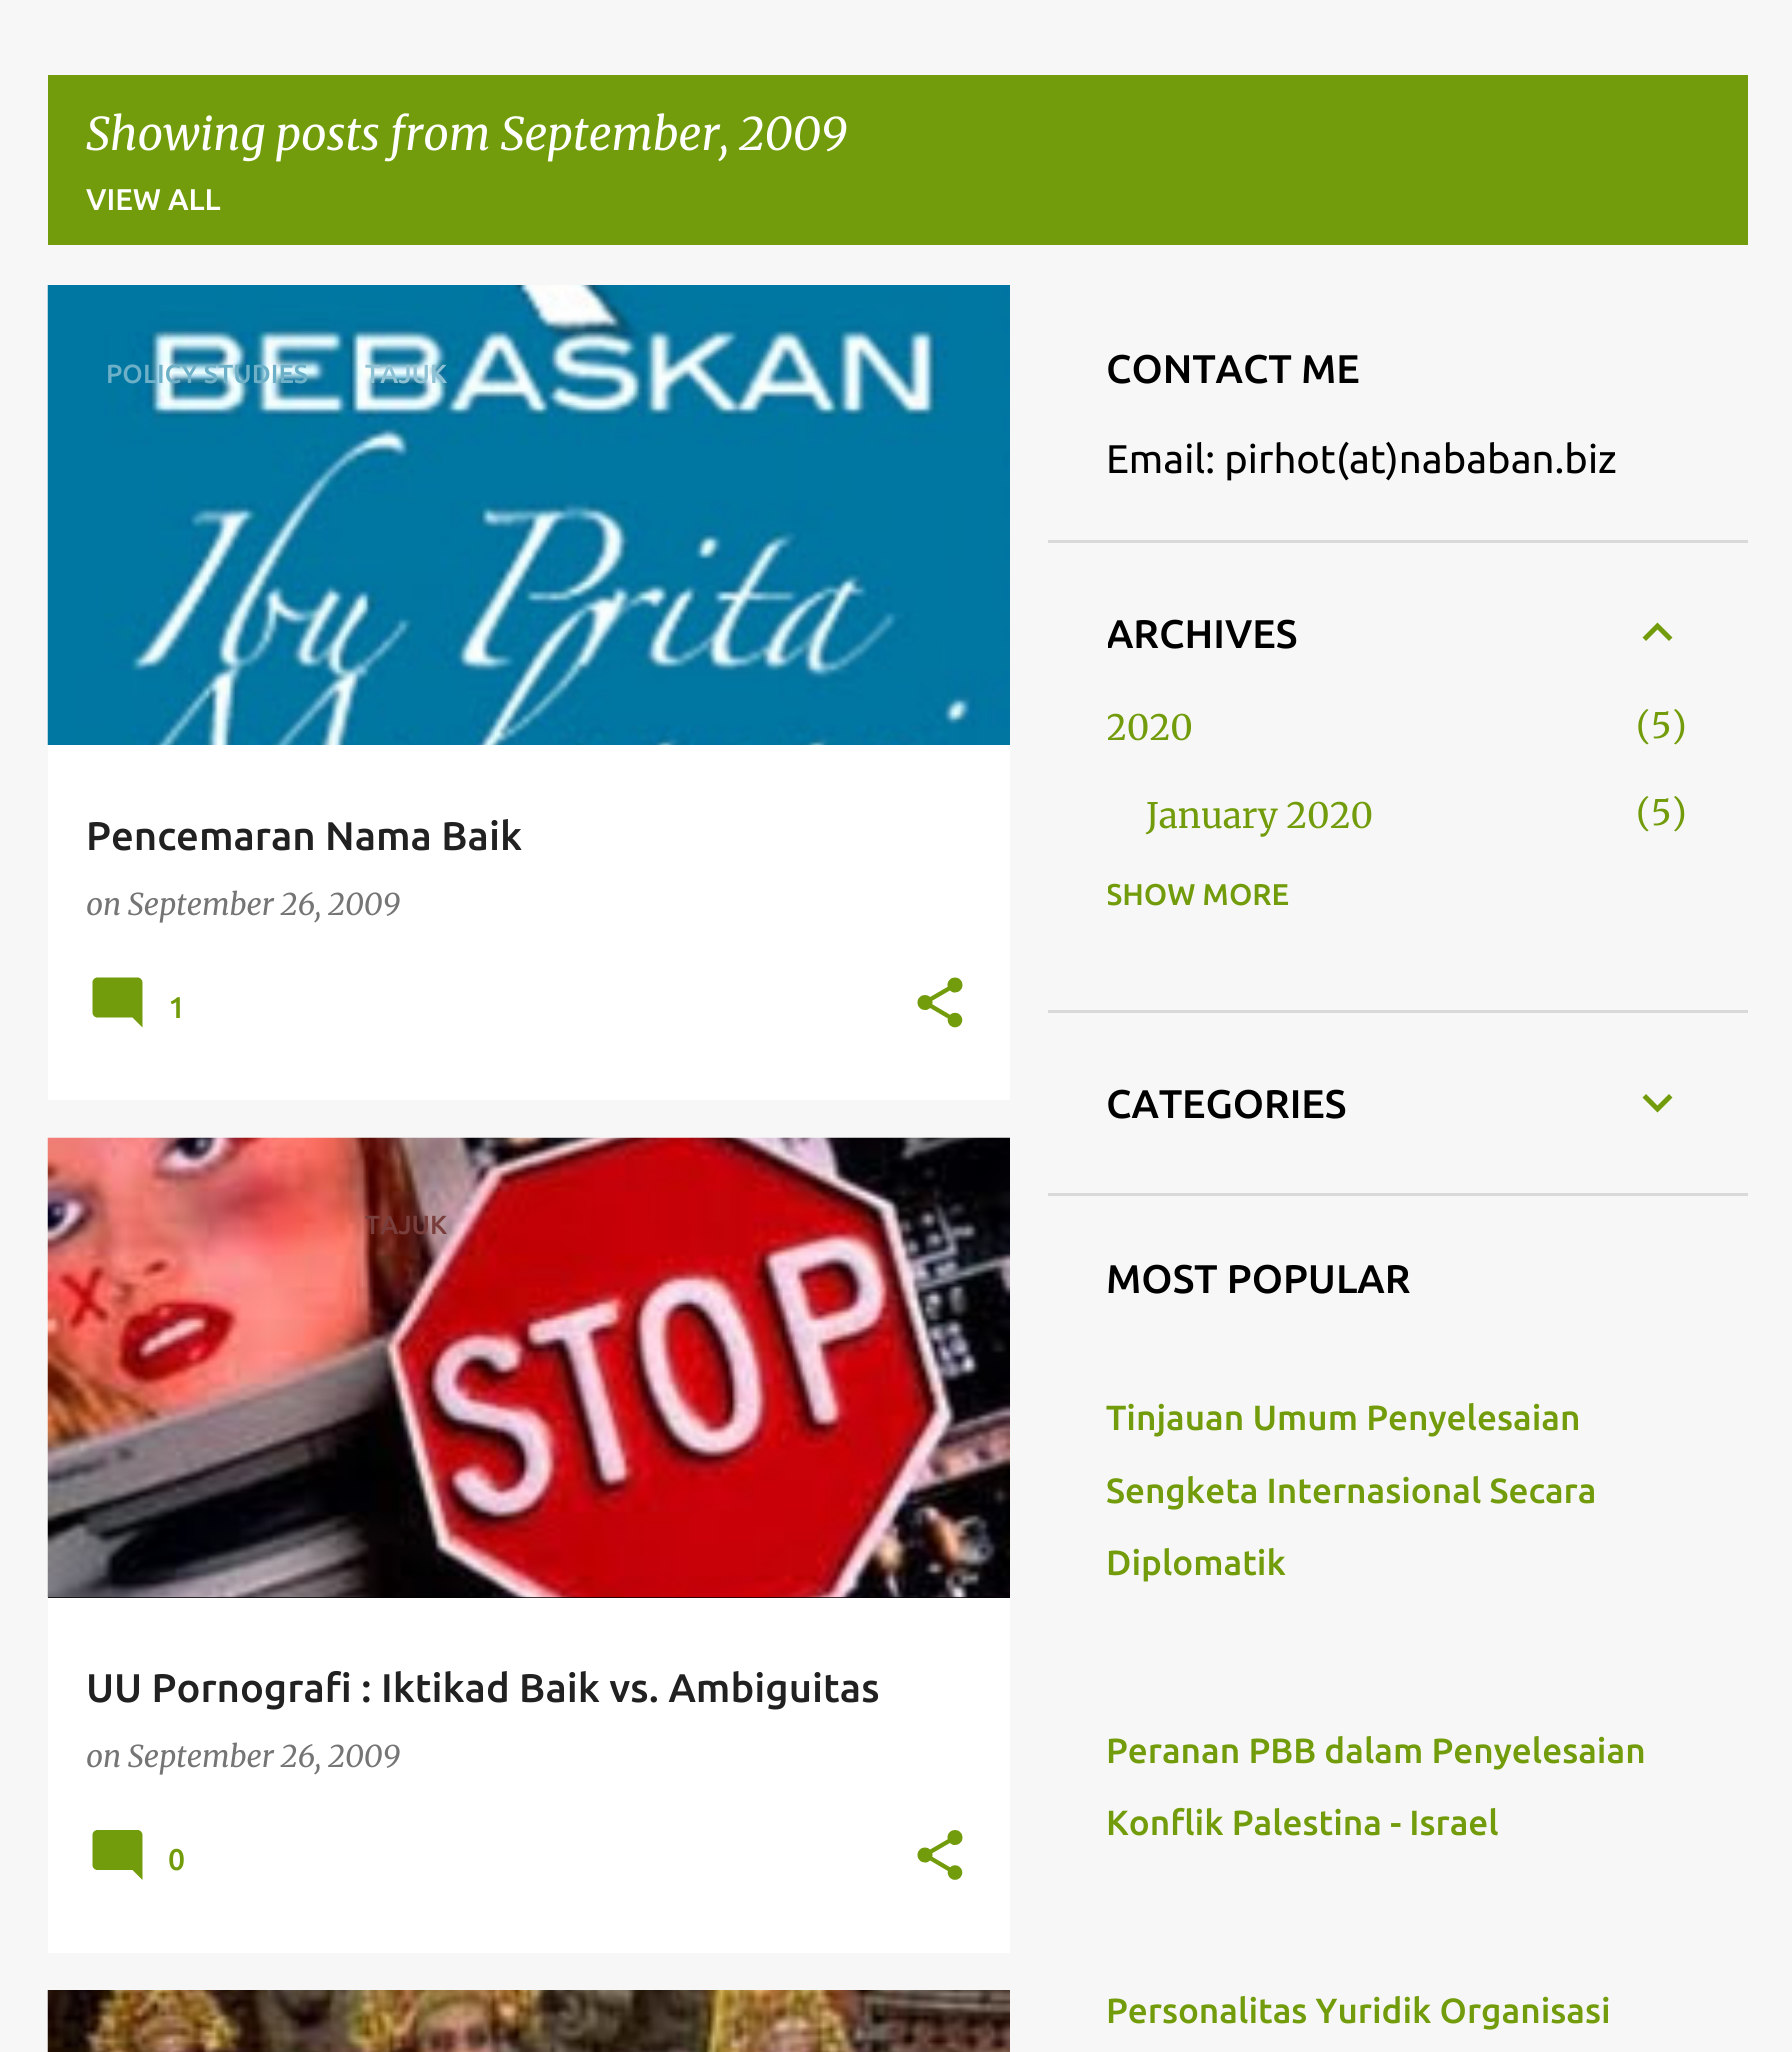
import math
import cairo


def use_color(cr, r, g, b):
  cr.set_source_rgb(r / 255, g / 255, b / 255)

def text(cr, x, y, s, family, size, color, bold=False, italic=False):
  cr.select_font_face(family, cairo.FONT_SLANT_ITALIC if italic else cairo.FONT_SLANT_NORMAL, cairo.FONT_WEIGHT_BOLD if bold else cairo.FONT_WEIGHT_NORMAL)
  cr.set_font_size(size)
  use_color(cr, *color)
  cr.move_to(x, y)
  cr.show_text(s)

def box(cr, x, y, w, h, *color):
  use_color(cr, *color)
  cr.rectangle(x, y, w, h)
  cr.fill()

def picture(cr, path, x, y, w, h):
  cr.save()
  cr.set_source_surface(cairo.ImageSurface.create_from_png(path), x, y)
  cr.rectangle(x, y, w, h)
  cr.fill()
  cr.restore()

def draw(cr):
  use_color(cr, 247, 247, 247)
  cr.paint()
  box(cr, 48, 75, 1700, 170, 114, 156, 11)
  box(cr, 48, 745, 962, 355, 255, 255, 255)
  picture(cr, "img_01.png", 47, 285, 963, 460)
  picture(cr, "img_02.png", 92, 977, 51, 51)
  picture(cr, "img_03.png", 917, 977, 46, 51)
  box(cr, 48, 1598, 962, 355, 255, 255, 255)
  box(cr, 48, 1597, 962, 1, 0, 0, 0)
  picture(cr, "img_04.png", 47, 1137, 963, 461)
  picture(cr, "img_05.png", 92, 1830, 51, 50)
  picture(cr, "img_06.png", 917, 1830, 46, 50)
  picture(cr, "img_07.png", 47, 1990, 963, 62)
  box(cr, 1048, 540, 700, 3, 217, 217, 217)
  picture(cr, "img_08.png", 1642, 622, 31, 19)
  box(cr, 1048, 1010, 700, 3, 217, 217, 217)
  picture(cr, "img_09.png", 1642, 1094, 31, 19)
  box(cr, 1048, 1193, 700, 3, 217, 217, 217)
  text(cr, 86, 150, "Showing posts from September, 2009", "Merriweather", 45, (255, 255, 255), italic=True)
  text(cr, 86, 210, "VIEW ALL", "Ubuntu Medium", 30, (255, 255, 255))
  text(cr, 106, 383, "POLICY STUDIES", "Ubuntu Medium", 26.25, (109, 176, 200))
  text(cr, 365, 383, "TAJUK", "Ubuntu Medium", 26.25, (142, 193, 211))
  text(cr, 86, 915, "on September 26, 2009", "Merriweather", 30, (117, 117, 117), italic=True)
  text(cr, 86, 850, "Pencemaran Nama Baik", "Ubuntu Medium", 40, (33, 33, 33))
  text(cr, 168, 1018, "1", "Ubuntu Medium", 30, (114, 156, 11))
  text(cr, 365, 1234, "TAJUK", "Ubuntu Medium", 26.25, (121, 62, 59))
  text(cr, 86, 1767, "on September 26, 2009", "Merriweather", 30, (117, 117, 117), italic=True)
  text(cr, 86, 1702, "UU Pornografi : Iktikad Baik vs. Ambiguitas", "Ubuntu Medium", 40, (33, 33, 33))
  text(cr, 168, 1870, "0", "Ubuntu Medium", 30, (114, 156, 11))
  text(cr, 1106, 383, "CONTACT ME", "Ubuntu Medium", 40, (0, 0, 0))
  text(cr, 1106, 473, "Email: pirhot(at)nababan.biz", "Ubuntu", 40, (0, 0, 0))
  cr.save()
  cr.rectangle(1108, 610, 520, 45)
  cr.clip()
  text(cr, 1106, 648, "ARCHIVES", "Ubuntu Medium", 40, (0, 0, 0))
  cr.restore()
  cr.save()
  cr.rectangle(1108, 603, 580, 347)
  cr.clip()
  text(cr, 1106, 740, "2020", "Merriweather Light", 35, (114, 156, 11))
  cr.restore()
  text(cr, 1636, 738, "(5)", "Merriweather Light", 35, (114, 156, 11))
  text(cr, 1146, 828, "January 2020", "Merriweather Light", 35, (114, 156, 11))
  text(cr, 1636, 825, "(5)", "Merriweather Light", 35, (114, 156, 11))
  cr.save()
  cr.rectangle(1108, 603, 580, 347)
  cr.clip()
  text(cr, 1106, 905, "SHOW MORE", "Ubuntu Medium", 30, (114, 156, 11))
  cr.restore()
  text(cr, 1106, 1118, "CATEGORIES", "Ubuntu Medium", 40, (0, 0, 0))
  text(cr, 1106, 1293, "MOST POPULAR", "Ubuntu Medium", 40, (0, 0, 0))
  text(cr, 1106, 1430, "Tinjauan Umum Penyelesaian", "Ubuntu Medium", 35, (114, 156, 11))
  text(cr, 1106, 1503, "Sengketa Internasional Secara", "Ubuntu Medium", 35, (114, 156, 11))
  text(cr, 1106, 1575, "Diplomatik", "Ubuntu Medium", 35, (114, 156, 11))
  text(cr, 1106, 1763, "Peranan PBB dalam Penyelesaian", "Ubuntu Medium", 35, (114, 156, 11))
  text(cr, 1106, 1835, "Konflik Palestina - Israel", "Ubuntu Medium", 35, (114, 156, 11))
  text(cr, 1106, 2023, "Personalitas Yuridik Organisasi", "Ubuntu Medium", 35, (114, 156, 11))


surface = cairo.ImageSurface(cairo.FORMAT_RGB24, 1792, 2052)
cr = cairo.Context(surface)
options = cairo.FontOptions()
options.set_hint_metrics(cairo.HINT_METRICS_OFF)
options.set_hint_style(cairo.HINT_STYLE_NONE)
cr.set_font_options(options)
cr.set_miter_limit(4)
draw(cr)
surface.write_to_png("out.png")
